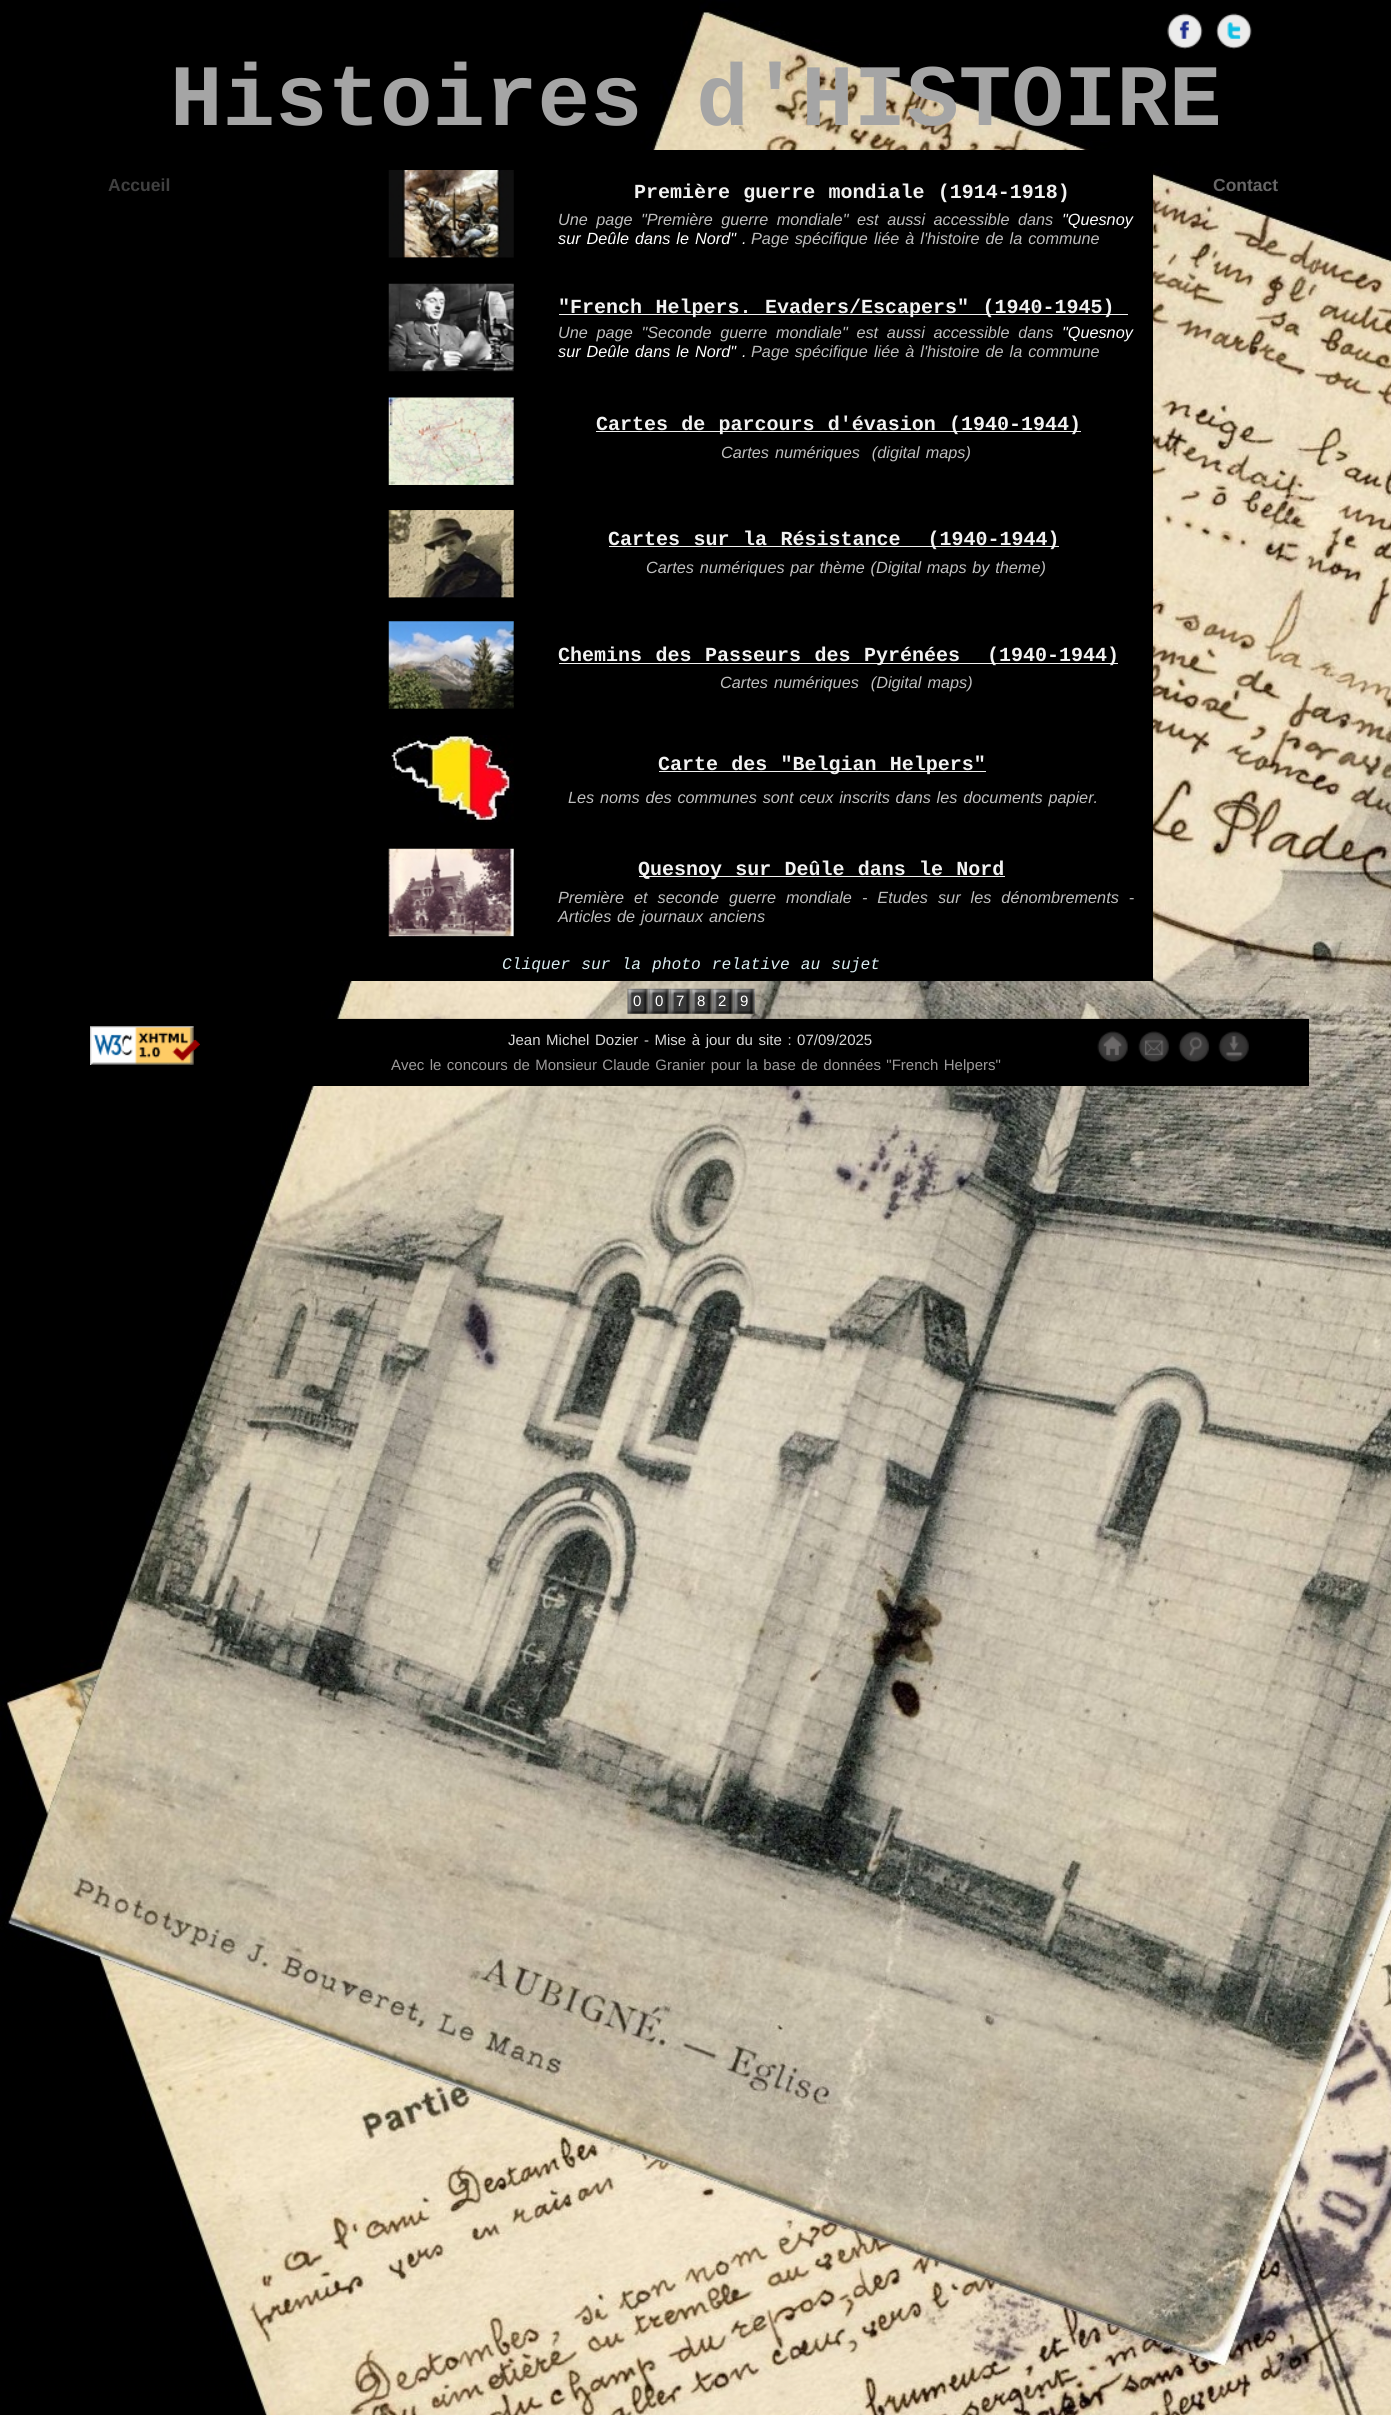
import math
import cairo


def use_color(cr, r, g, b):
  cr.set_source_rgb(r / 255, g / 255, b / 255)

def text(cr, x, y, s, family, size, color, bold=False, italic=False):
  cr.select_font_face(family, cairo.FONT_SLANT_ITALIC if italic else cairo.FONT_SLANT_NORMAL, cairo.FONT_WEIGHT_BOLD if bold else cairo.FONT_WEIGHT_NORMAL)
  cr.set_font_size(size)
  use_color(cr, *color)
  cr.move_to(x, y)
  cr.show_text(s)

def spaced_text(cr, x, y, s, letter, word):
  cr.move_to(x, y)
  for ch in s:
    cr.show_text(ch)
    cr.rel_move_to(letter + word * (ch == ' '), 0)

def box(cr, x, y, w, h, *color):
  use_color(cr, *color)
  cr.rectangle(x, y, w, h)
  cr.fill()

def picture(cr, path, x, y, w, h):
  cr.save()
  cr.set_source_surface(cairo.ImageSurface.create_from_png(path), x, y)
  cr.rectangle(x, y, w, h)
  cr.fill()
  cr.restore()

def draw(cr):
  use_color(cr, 255, 255, 255)
  cr.paint()
  picture(cr, "img_01.png", 0, 0, 1391, 2415)
  picture(cr, "img_02.png", 1167, 13, 36, 36)
  picture(cr, "img_03.png", 1216, 13, 36, 36)
  box(cr, 340, 150, 813, 831, 0, 0, 0)
  picture(cr, "img_04.png", 388, 170, 126, 88)
  cr.set_source_rgba(0, 0, 0, 0.31)
  cr.rectangle(403, 257, 95, 1)
  cr.fill()
  picture(cr, "img_05.png", 388, 283, 126, 89)
  picture(cr, "img_06.png", 513, 290, 1, 80)
  cr.set_source_rgba(0, 0, 0, 0.47)
  cr.rectangle(422, 371, 90, 1)
  cr.fill()
  box(cr, 559, 314, 569, 1, 242, 242, 242)
  picture(cr, "img_07.png", 388, 397, 126, 88)
  picture(cr, "img_08.png", 513, 401, 1, 84)
  box(cr, 596, 431, 485, 1, 242, 242, 242)
  picture(cr, "img_09.png", 388, 510, 126, 88)
  picture(cr, "img_10.png", 513, 512, 1, 85)
  picture(cr, "img_11.png", 391, 597, 122, 1)
  box(cr, 513, 597, 1, 1, 52, 49, 40)
  box(cr, 609, 546, 450, 1, 242, 242, 242)
  picture(cr, "img_12.png", 388, 621, 126, 88)
  picture(cr, "img_13.png", 513, 624, 1, 82)
  picture(cr, "img_14.png", 394, 708, 95, 1)
  box(cr, 559, 663, 559, 1, 242, 242, 242)
  picture(cr, "img_15.png", 391, 735, 123, 88)
  box(cr, 659, 771, 327, 1, 242, 242, 242)
  picture(cr, "img_16.png", 388, 848, 126, 89)
  picture(cr, "img_17.png", 513, 851, 1, 85)
  picture(cr, "img_18.png", 391, 936, 123, 1)
  box(cr, 639, 876, 366, 1, 242, 242, 242)
  picture(cr, "img_19.png", 627, 988, 22, 26)
  picture(cr, "img_20.png", 648, 988, 22, 26)
  picture(cr, "img_21.png", 670, 988, 22, 26)
  picture(cr, "img_22.png", 691, 988, 22, 26)
  picture(cr, "img_23.png", 712, 988, 22, 26)
  picture(cr, "img_24.png", 733, 988, 22, 26)
  box(cr, 300, 1019, 1009, 67, 0, 0, 0)
  picture(cr, "img_25.png", 337, 1018, 972, 1)
  picture(cr, "img_26.png", 90, 1026, 110, 39)
  picture(cr, "img_27.png", 1097, 1031, 31, 31)
  picture(cr, "img_28.png", 1138, 1031, 31, 31)
  picture(cr, "img_29.png", 1178, 1031, 32, 31)
  picture(cr, "img_30.png", 1218, 1031, 31, 31)
  cr.select_font_face("Liberation Mono", cairo.FONT_SLANT_NORMAL, cairo.FONT_WEIGHT_BOLD)
  cr.set_font_size(87.5)
  use_color(cr, 165, 165, 165)
  spaced_text(cr, 170, 125, "Histoires d'HISTOIRE", 0, 1.25)
  text(cr, 108, 191, "Accueil", "Liberation Sans", 17.5, (64, 64, 64), bold=True)
  cr.select_font_face("Liberation Mono", cairo.FONT_SLANT_NORMAL, cairo.FONT_WEIGHT_BOLD)
  cr.set_font_size(20)
  use_color(cr, 242, 242, 242)
  spaced_text(cr, 634, 198, "Première guerre mondiale (1914-1918)", 0, 1.25)
  text(cr, 1213, 191, "Contact", "Liberation Sans", 17.5, (103, 102, 102), bold=True)
  cr.select_font_face("Liberation Sans", cairo.FONT_SLANT_ITALIC)
  cr.set_font_size(16.25)
  use_color(cr, 191, 191, 191)
  spaced_text(cr, 558, 225, "Une page \"Première guerre mondiale\" est aussi accessible dans", 0, 4)
  text(cr, 1062, 225, "\"Quesnoy", "Liberation Sans", 16.25, (255, 255, 255), italic=True)
  spaced_text(cr, 558, 244, "sur Deûle dans le Nord\" .", 0, 1.5)
  use_color(cr, 191, 191, 191)
  spaced_text(cr, 751, 244, "Page spécifique", 0, 1.25)
  spaced_text(cr, 874, 244, "liée à l'histoire de la commune", 0, 1.5)
  cr.select_font_face("Liberation Mono", cairo.FONT_SLANT_NORMAL, cairo.FONT_WEIGHT_BOLD)
  cr.set_font_size(20)
  use_color(cr, 242, 242, 242)
  spaced_text(cr, 558, 313, "\"French Helpers. Evaders/Escapers\" (1940-1945)", 0, 1.5)
  cr.select_font_face("Liberation Sans", cairo.FONT_SLANT_ITALIC)
  cr.set_font_size(16.25)
  use_color(cr, 191, 191, 191)
  spaced_text(cr, 558, 338, "Une page \"Seconde guerre mondiale\" est aussi accessible dans", 0, 4.25)
  text(cr, 1062, 338, "\"Quesnoy", "Liberation Sans", 16.25, (255, 255, 255), italic=True)
  spaced_text(cr, 558, 357, "sur Deûle dans le Nord\" .", 0, 1.5)
  use_color(cr, 191, 191, 191)
  spaced_text(cr, 751, 357, "Page spécifique", 0, 1.25)
  spaced_text(cr, 874, 357, "liée à l'histoire de la commune", 0, 1.5)
  cr.select_font_face("Liberation Mono", cairo.FONT_SLANT_NORMAL, cairo.FONT_WEIGHT_BOLD)
  cr.set_font_size(20)
  use_color(cr, 242, 242, 242)
  spaced_text(cr, 596, 430, "Cartes de parcours d'évasion (1940-1944)", 0, 1.25)
  cr.select_font_face("Liberation Sans", cairo.FONT_SLANT_ITALIC)
  cr.set_font_size(16.25)
  use_color(cr, 191, 191, 191)
  spaced_text(cr, 721, 458, "Cartes numériques  (digital maps)", 0, 1.5)
  cr.select_font_face("Liberation Mono", cairo.FONT_SLANT_NORMAL, cairo.FONT_WEIGHT_BOLD)
  cr.set_font_size(20)
  use_color(cr, 242, 242, 242)
  spaced_text(cr, 608, 545, "Cartes sur la Résistance  (1940-1944)", 0, 1.5)
  cr.select_font_face("Liberation Sans", cairo.FONT_SLANT_ITALIC)
  cr.set_font_size(16.25)
  use_color(cr, 191, 191, 191)
  spaced_text(cr, 646, 573, "Cartes numériques par thème (Digital maps by theme)", 0, 1.25)
  cr.select_font_face("Liberation Mono", cairo.FONT_SLANT_NORMAL, cairo.FONT_WEIGHT_BOLD)
  cr.set_font_size(20)
  use_color(cr, 242, 242, 242)
  spaced_text(cr, 558, 661, "Chemins des Passeurs des Pyrénées  (1940-1944)", 0, 1.5)
  cr.select_font_face("Liberation Sans", cairo.FONT_SLANT_ITALIC)
  cr.set_font_size(16.25)
  use_color(cr, 191, 191, 191)
  spaced_text(cr, 720, 688, "Cartes numériques  (Digital maps)", 0, 1.5)
  cr.select_font_face("Liberation Mono", cairo.FONT_SLANT_NORMAL, cairo.FONT_WEIGHT_BOLD)
  cr.set_font_size(20)
  use_color(cr, 242, 242, 242)
  spaced_text(cr, 658, 770, "Carte des \"Belgian Helpers\"", 0, 1.25)
  cr.select_font_face("Liberation Sans", cairo.FONT_SLANT_ITALIC)
  cr.set_font_size(16.25)
  use_color(cr, 191, 191, 191)
  spaced_text(cr, 568, 803, "Les noms des communes sont ceux inscrits dans les documents papier.", 0, 1.25)
  cr.select_font_face("Liberation Mono", cairo.FONT_SLANT_NORMAL, cairo.FONT_WEIGHT_BOLD)
  cr.set_font_size(20)
  use_color(cr, 242, 242, 242)
  spaced_text(cr, 638, 875, "Quesnoy sur Deûle dans le Nord", 0, 1.25)
  cr.select_font_face("Liberation Sans", cairo.FONT_SLANT_ITALIC)
  cr.set_font_size(16.25)
  use_color(cr, 191, 191, 191)
  spaced_text(cr, 558, 903, "Première et seconde guerre mondiale - Etudes sur les dénombrements -", 0, 5.5)
  spaced_text(cr, 558, 922, "Articles de journaux anciens", 0, 1.25)
  cr.select_font_face("Liberation Mono", cairo.FONT_SLANT_ITALIC)
  use_color(cr, 219, 238, 243)
  spaced_text(cr, 502, 969, "Cliquer sur la photo relative au sujet", 0, 1.25)
  text(cr, 633, 1006, "0", "Liberation Sans", 15, (255, 255, 255))
  text(cr, 655, 1006, "0", "Liberation Sans", 15, (255, 255, 255))
  text(cr, 676, 1006, "7", "Liberation Sans", 15, (255, 255, 255))
  text(cr, 697, 1006, "8", "Liberation Sans", 15, (255, 255, 255))
  text(cr, 718, 1006, "2", "Liberation Sans", 15, (255, 255, 255))
  text(cr, 740, 1006, "9", "Liberation Sans", 15, (255, 255, 255))
  use_color(cr, 216, 216, 216)
  spaced_text(cr, 508, 1045, "Jean Michel Dozier - Mise à jour du site : 07/09/2025", 0, 1.4)
  use_color(cr, 157, 155, 155)
  spaced_text(cr, 391, 1070, "Avec le concours de Monsieur Claude Granier pour la base de données \"French Helpers\"", 0, 1.25)


surface = cairo.ImageSurface(cairo.FORMAT_RGB24, 1391, 2415)
cr = cairo.Context(surface)
options = cairo.FontOptions()
options.set_hint_metrics(cairo.HINT_METRICS_OFF)
options.set_hint_style(cairo.HINT_STYLE_NONE)
cr.set_font_options(options)
cr.set_miter_limit(4)
draw(cr)
surface.write_to_png("out.png")
